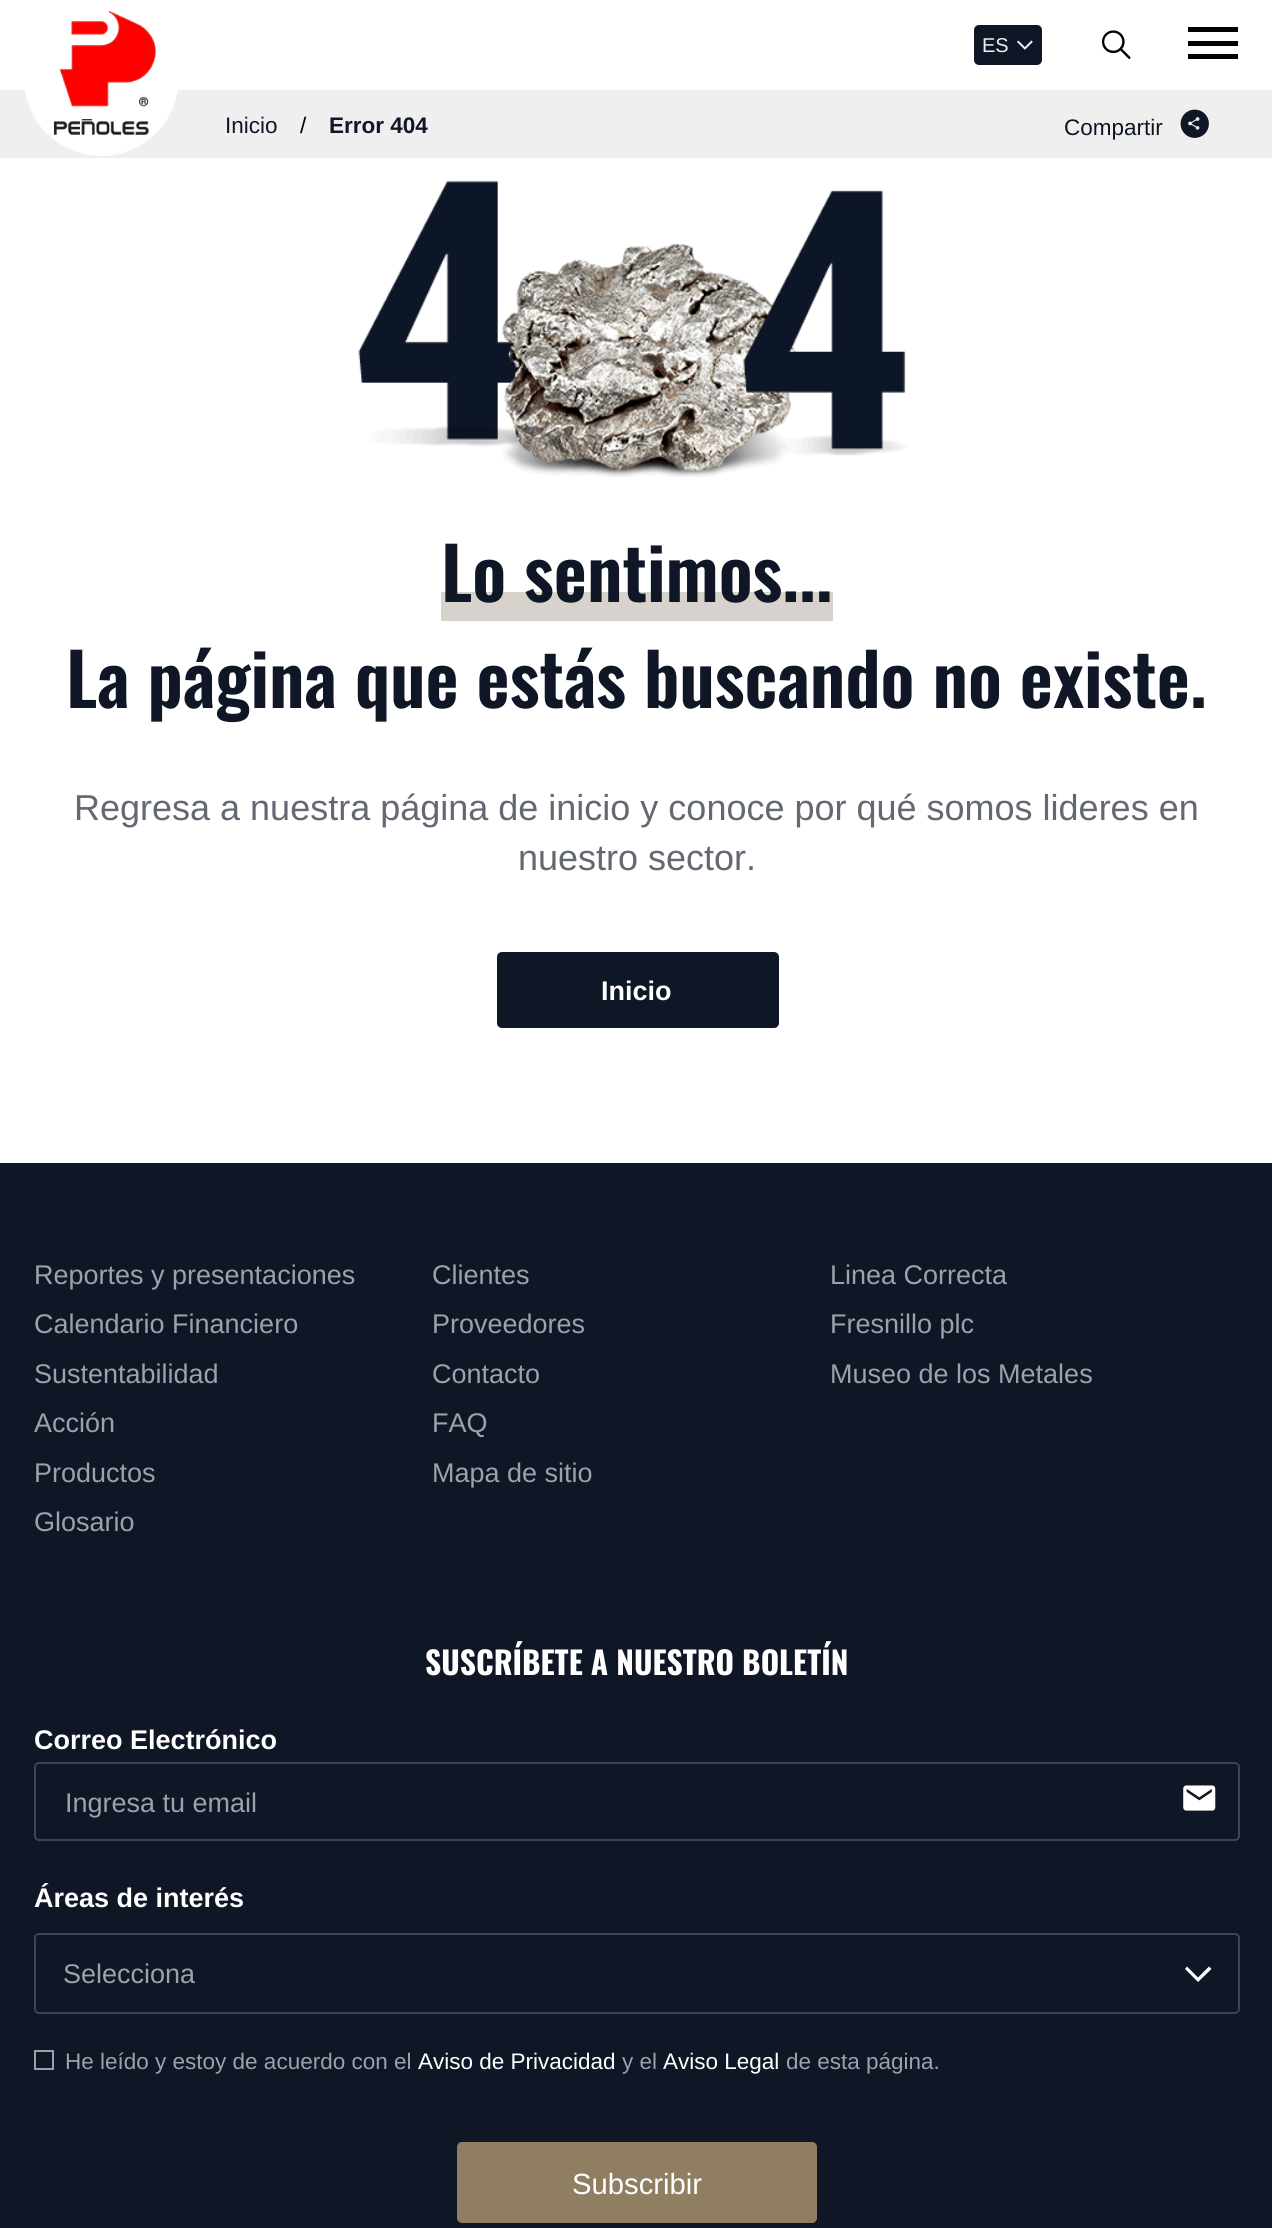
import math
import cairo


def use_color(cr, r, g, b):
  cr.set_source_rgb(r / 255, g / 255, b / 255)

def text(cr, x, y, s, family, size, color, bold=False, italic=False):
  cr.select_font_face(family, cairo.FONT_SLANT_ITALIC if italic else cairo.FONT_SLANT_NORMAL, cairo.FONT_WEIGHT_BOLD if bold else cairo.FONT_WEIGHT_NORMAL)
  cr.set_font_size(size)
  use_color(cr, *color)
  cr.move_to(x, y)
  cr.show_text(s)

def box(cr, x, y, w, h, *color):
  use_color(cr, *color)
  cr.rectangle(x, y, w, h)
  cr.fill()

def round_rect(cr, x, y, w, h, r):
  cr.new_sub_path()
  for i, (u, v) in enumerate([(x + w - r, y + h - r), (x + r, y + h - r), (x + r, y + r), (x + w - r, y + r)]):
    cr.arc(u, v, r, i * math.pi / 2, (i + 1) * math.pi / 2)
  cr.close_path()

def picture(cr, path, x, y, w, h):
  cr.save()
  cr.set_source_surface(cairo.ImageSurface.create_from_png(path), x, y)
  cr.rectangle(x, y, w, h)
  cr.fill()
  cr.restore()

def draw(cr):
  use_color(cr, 255, 255, 255)
  cr.paint()
  box(cr, 0, 90, 1272, 68, 239, 239, 239)
  picture(cr, "img_01.png", 25, 11, 153, 145)
  use_color(cr, 15, 22, 38)
  round_rect(cr, 975, 26, 66, 38, 4)
  cr.fill_preserve()
  cr.stroke()
  picture(cr, "img_02.png", 1017, 40, 16, 10)
  picture(cr, "img_03.png", 1101, 30, 30, 29)
  box(cr, 1188, 41, 50, 5, 0, 0, 0)
  box(cr, 1188, 27, 50, 5, 0, 0, 0)
  box(cr, 1188, 54, 50, 5, 0, 0, 0)
  picture(cr, "img_04.png", 1180, 109, 29, 29)
  picture(cr, "img_05.png", 358, 180, 549, 298)
  box(cr, 441, 592, 392, 29, 215, 210, 204)
  use_color(cr, 15, 22, 38)
  round_rect(cr, 497, 952, 282, 76, 5)
  cr.fill()
  box(cr, 0, 1163, 1272, 1065, 15, 22, 38)
  picture(cr, "img_06.png", 1183, 1785, 33, 26)
  round_rect(cr, 35, 1763, 1204, 77, 4)
  use_color(cr, 62, 68, 80)
  cr.stroke()
  round_rect(cr, 35, 1934, 1204, 79, 4)
  cr.stroke()
  use_color(cr, 255, 255, 255)
  cr.new_path()
  cr.move_to(1198, 1977.5)
  cr.line_to(1209, 1966.5)
  cr.line_to(1211.5, 1969)
  cr.line_to(1198, 1982)
  cr.line_to(1185, 1969)
  cr.line_to(1187, 1966.5)
  cr.close_path()
  cr.fill()
  cr.rectangle(35, 2051, 18, 18)
  use_color(cr, 158, 161, 168)
  cr.stroke()
  use_color(cr, 144, 126, 98)
  round_rect(cr, 457, 2142, 360, 81, 5)
  cr.fill()
  text(cr, 982, 52, "ES", "Liberation Sans", 20, (239, 239, 239))
  text(cr, 225, 133, "Inicio", "Liberation Sans", 22.5, (15, 22, 38))
  text(cr, 300, 133, "/", "Liberation Sans", 22.5, (0, 0, 0))
  text(cr, 329, 133, "Error 404", "Liberation Sans", 22.5, (15, 22, 38), bold=True)
  text(cr, 1064, 135, "Compartir", "Liberation Sans", 22.5, (15, 22, 38))
  text(cr, 441, 602, "Lo sentimos...", "Oswald SemiBold", 72, (15, 22, 38))
  text(cr, 66, 708, "La página que estás buscando no existe.", "Oswald SemiBold", 72, (15, 22, 38))
  text(cr, 74, 820, "Regresa a nuestra página de inicio y conoce por qué somos lideres en", "Liberation Sans", 36, (99, 104, 114))
  text(cr, 518, 870, "nuestro sector.", "Liberation Sans", 36, (99, 104, 114))
  text(cr, 601, 1000, "Inicio", "Liberation Sans", 27, (255, 255, 255), bold=True)
  text(cr, 34, 1284, "Reportes y presentaciones", "Liberation Sans", 27, (158, 161, 168))
  text(cr, 34, 1333, "Calendario Financiero", "Liberation Sans", 27, (158, 161, 168))
  text(cr, 34, 1383, "Sustentabilidad", "Liberation Sans", 27, (158, 161, 168))
  text(cr, 34, 1432, "Acción", "Liberation Sans", 27, (158, 161, 168))
  text(cr, 34, 1482, "Productos", "Liberation Sans", 27, (158, 161, 168))
  text(cr, 34, 1531, "Glosario", "Liberation Sans", 27, (158, 161, 168))
  text(cr, 432, 1284, "Clientes", "Liberation Sans", 27, (158, 161, 168))
  text(cr, 432, 1333, "Proveedores", "Liberation Sans", 27, (158, 161, 168))
  text(cr, 432, 1383, "Contacto", "Liberation Sans", 27, (158, 161, 168))
  text(cr, 432, 1432, "FAQ", "Liberation Sans", 27, (158, 161, 168))
  text(cr, 432, 1482, "Mapa de sitio", "Liberation Sans", 27, (158, 161, 168))
  text(cr, 830, 1284, "Linea Correcta", "Liberation Sans", 27, (158, 161, 168))
  text(cr, 830, 1333, "Fresnillo plc", "Liberation Sans", 27, (158, 161, 168))
  text(cr, 830, 1383, "Museo de los Metales", "Liberation Sans", 27, (158, 161, 168))
  text(cr, 425, 1675, "SUSCRÍBETE A NUESTRO BOLETÍN", "Oswald", 31.5, (255, 255, 255), bold=True)
  text(cr, 34, 1749, "Correo Electrónico", "Liberation Sans", 27, (255, 255, 255), bold=True)
  text(cr, 65, 1812, "Ingresa tu email", "Liberation Sans", 27, (158, 161, 168))
  text(cr, 34, 1907, "Áreas de interés", "Liberation Sans", 27, (255, 255, 255), bold=True)
  text(cr, 63, 1983, "Selecciona", "Liberation Sans", 27, (158, 161, 168))
  text(cr, 65, 2069, "He leído y estoy de acuerdo con el", "Liberation Sans", 22.5, (158, 161, 168))
  text(cr, 418, 2069, "Aviso de Privacidad", "Liberation Sans", 22.5, (255, 255, 255))
  text(cr, 622, 2069, "y el", "Liberation Sans", 22.5, (158, 161, 168))
  text(cr, 663, 2069, "Aviso Legal", "Liberation Sans", 22.5, (255, 255, 255))
  text(cr, 786, 2069, "de esta página.", "Liberation Sans", 22.5, (158, 161, 168))
  text(cr, 572, 2194, "Subscribir", "Liberation Sans", 29.25, (255, 255, 255))


surface = cairo.ImageSurface(cairo.FORMAT_RGB24, 1272, 2228)
cr = cairo.Context(surface)
options = cairo.FontOptions()
options.set_hint_metrics(cairo.HINT_METRICS_OFF)
options.set_hint_style(cairo.HINT_STYLE_NONE)
cr.set_font_options(options)
cr.set_miter_limit(4)
draw(cr)
surface.write_to_png("out.png")
